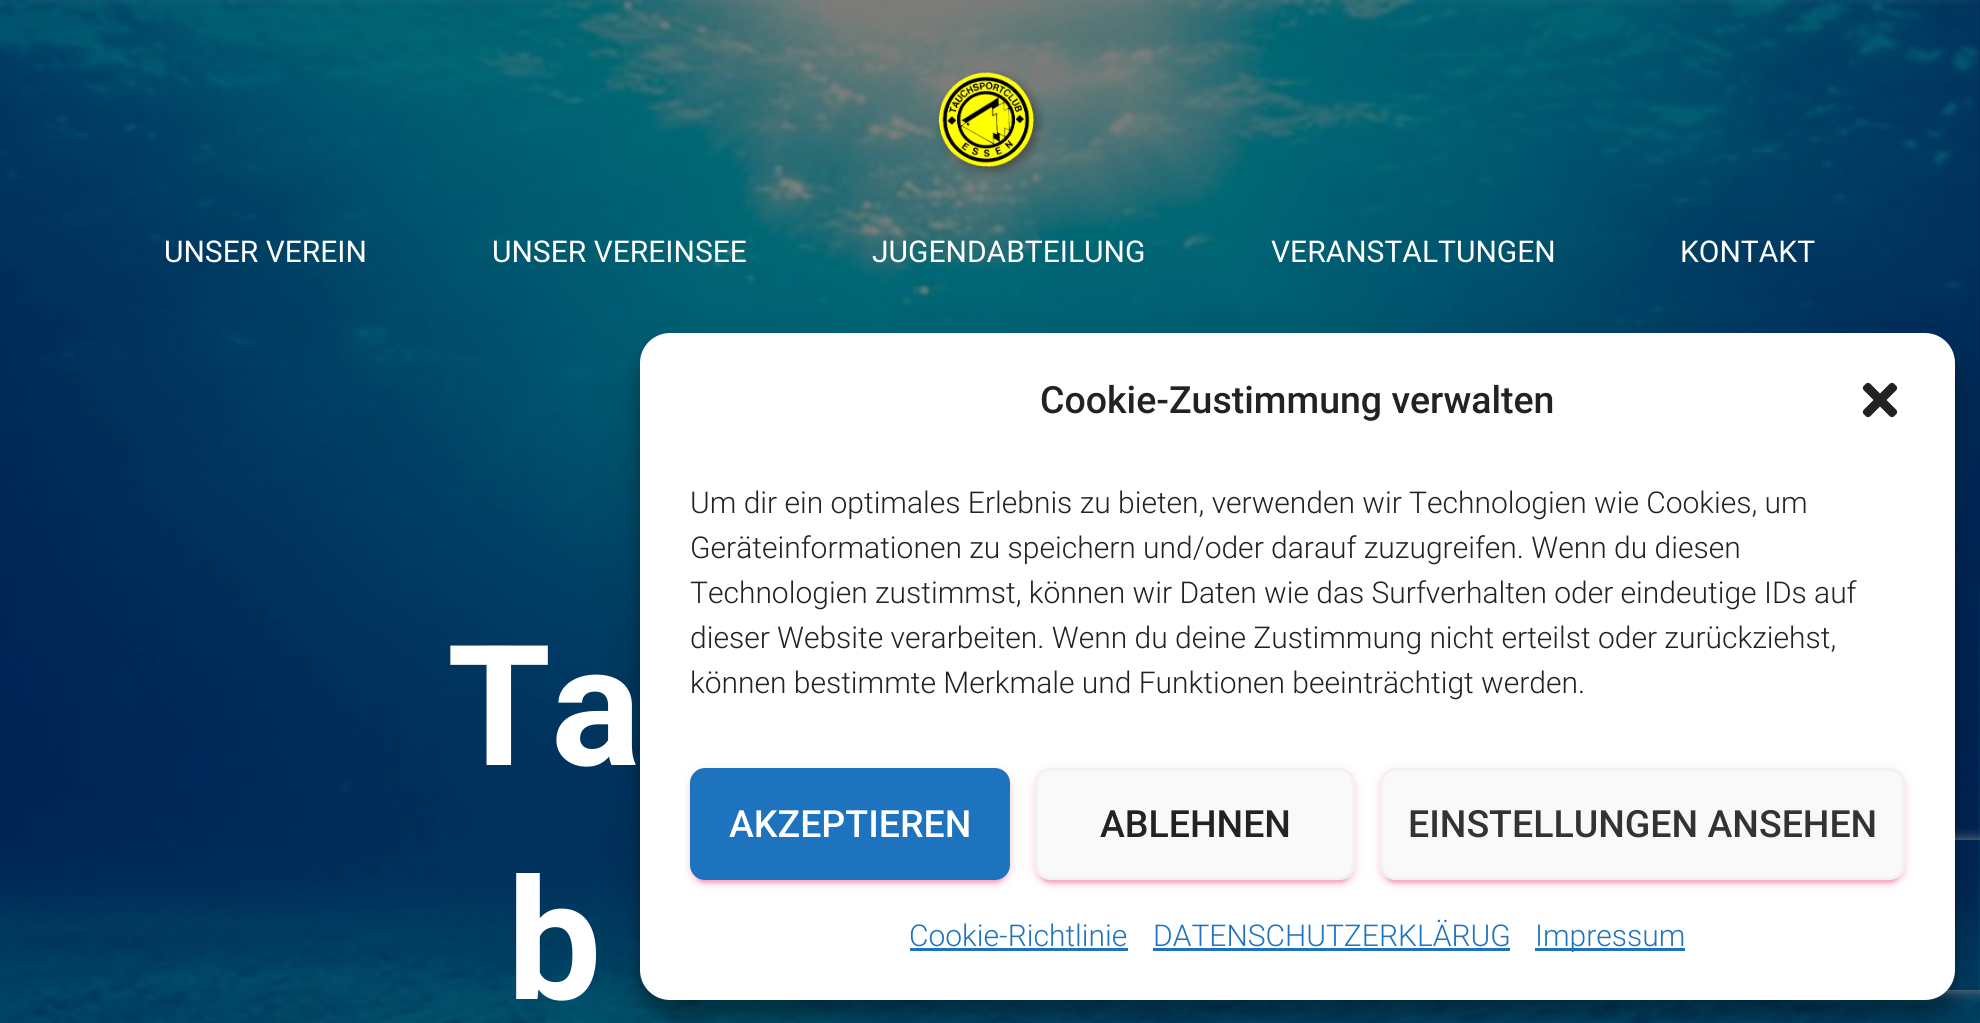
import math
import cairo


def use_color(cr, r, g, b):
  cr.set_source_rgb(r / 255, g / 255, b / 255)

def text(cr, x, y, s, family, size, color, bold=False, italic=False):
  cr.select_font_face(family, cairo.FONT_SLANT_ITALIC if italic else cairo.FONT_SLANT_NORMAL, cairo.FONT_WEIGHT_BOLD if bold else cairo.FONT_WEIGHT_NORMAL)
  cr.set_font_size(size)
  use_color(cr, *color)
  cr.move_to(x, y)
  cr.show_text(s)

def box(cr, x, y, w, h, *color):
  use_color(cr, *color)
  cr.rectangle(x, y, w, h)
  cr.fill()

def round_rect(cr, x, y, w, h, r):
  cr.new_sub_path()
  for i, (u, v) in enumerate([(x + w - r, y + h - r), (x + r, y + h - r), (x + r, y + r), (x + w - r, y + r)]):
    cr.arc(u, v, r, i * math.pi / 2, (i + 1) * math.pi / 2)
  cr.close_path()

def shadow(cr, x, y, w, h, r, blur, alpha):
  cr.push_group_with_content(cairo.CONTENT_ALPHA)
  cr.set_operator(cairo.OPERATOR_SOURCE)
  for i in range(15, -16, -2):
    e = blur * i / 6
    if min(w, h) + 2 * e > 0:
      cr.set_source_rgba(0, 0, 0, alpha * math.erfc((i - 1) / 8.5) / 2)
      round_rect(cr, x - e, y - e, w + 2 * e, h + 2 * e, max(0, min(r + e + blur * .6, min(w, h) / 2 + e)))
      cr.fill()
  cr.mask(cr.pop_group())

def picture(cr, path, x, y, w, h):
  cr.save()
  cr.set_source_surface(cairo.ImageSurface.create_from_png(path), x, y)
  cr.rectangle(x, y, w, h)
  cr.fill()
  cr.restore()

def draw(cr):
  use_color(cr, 255, 255, 255)
  cr.paint()
  picture(cr, "img_01.png", 1979, 0, 1, 1023)
  picture(cr, "img_03.png", 0, 0, 1980, 1023)
  picture(cr, "img_02.png", 936, 70, 108, 108)
  use_color(cr, 0, 0, 0)
  shadow(cr, 640, 348, 1315, 667, 30, 7.5, 0.23)
  shadow(cr, 640, 358, 1315, 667, 30, 25, 0.19)
  cr.save()
  cr.set_fill_rule(cairo.FILL_RULE_EVEN_ODD)
  cr.new_path()
  cr.move_to(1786, 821)
  cr.line_to(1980, 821)
  cr.line_to(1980, 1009)
  cr.line_to(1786, 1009)
  cr.close_path()
  cr.move_to(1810, 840)
  cr.line_to(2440, 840)
  cr.curve_to(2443, 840, 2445, 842, 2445, 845)
  cr.line_to(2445, 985)
  cr.curve_to(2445, 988, 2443, 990, 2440, 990)
  cr.line_to(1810, 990)
  cr.curve_to(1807, 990, 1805, 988, 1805, 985)
  cr.line_to(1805, 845)
  cr.curve_to(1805, 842, 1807, 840, 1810, 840)
  cr.close_path()
  cr.clip()
  use_color(cr, 128, 128, 128)
  shadow(cr, 1805, 840, 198, 150, 5, 6, 1)
  cr.restore()
  use_color(cr, 255, 255, 255)
  round_rect(cr, 640, 333, 1315, 667, 30)
  cr.fill()
  picture(cr, "img_04.png", 1862, 382, 36, 36)
  use_color(cr, 233, 30, 99)
  shadow(cr, 690, 770, 320, 113, 15, 6, 0.12)
  shadow(cr, 695, 780, 310, 103, 10, 1, 0.2)
  shadow(cr, 690, 773, 320, 112, 15, 2.5, 0.14)
  use_color(cr, 30, 115, 190)
  round_rect(cr, 691.5, 769.5, 317, 109, 13.5)
  cr.fill_preserve()
  cr.set_line_width(3)
  cr.stroke()
  use_color(cr, 233, 30, 99)
  shadow(cr, 1035, 770, 320, 113, 15, 6, 0.12)
  shadow(cr, 1040, 780, 310, 103, 10, 1, 0.2)
  shadow(cr, 1035, 773, 320, 112, 15, 2.5, 0.14)
  use_color(cr, 249, 249, 249)
  round_rect(cr, 1036.5, 769.5, 317, 109, 13.5)
  cr.fill_preserve()
  use_color(cr, 242, 242, 242)
  cr.stroke()
  use_color(cr, 233, 30, 99)
  shadow(cr, 1380, 770, 525, 113, 15, 6, 0.12)
  shadow(cr, 1385, 780, 515, 103, 10, 1, 0.2)
  shadow(cr, 1380, 773, 525, 112, 15, 2.5, 0.14)
  use_color(cr, 249, 249, 249)
  round_rect(cr, 1381.5, 769.5, 522, 109, 13.5)
  cr.fill_preserve()
  use_color(cr, 242, 242, 242)
  cr.stroke()
  box(cr, 910, 948, 218, 3, 30, 115, 190)
  box(cr, 1153, 948, 357, 3, 30, 115, 190)
  box(cr, 1535, 948, 150, 3, 30, 115, 190)
  text(cr, 164, 262, "UNSER VEREIN", "Roboto", 30, (255, 255, 255))
  text(cr, 492, 262, "UNSER VEREINSEE", "Roboto", 30, (255, 255, 255))
  text(cr, 872, 262, "JUGENDABTEILUNG", "Roboto", 30, (255, 255, 255))
  text(cr, 1271, 262, "VERANSTALTUNGEN", "Roboto", 30, (255, 255, 255))
  text(cr, 1680, 262, "KONTAKT", "Roboto", 30, (255, 255, 255))
  text(cr, 447, 765, "Ta", "Roboto", 168, (255, 255, 255), bold=True)
  text(cr, 507, 999, "b", "Roboto", 168, (255, 255, 255), bold=True)
  text(cr, 1040, 413, "Cookie-Zustimmung verwalten", "Roboto Medium", 37.5, (34, 34, 34))
  text(cr, 690, 513, "Um dir ein optimales Erlebnis zu bieten, verwenden wir Technologien wie Cookies, um", "Roboto Light", 30, (34, 34, 34))
  text(cr, 690, 558, "Geräteinformationen zu speichern und/oder darauf zuzugreifen. Wenn du diesen", "Roboto Light", 30, (34, 34, 34))
  text(cr, 690, 603, "Technologien zustimmst, können wir Daten wie das Surfverhalten oder eindeutige IDs auf", "Roboto Light", 30, (34, 34, 34))
  text(cr, 690, 648, "dieser Website verarbeiten. Wenn du deine Zustimmung nicht erteilst oder zurückziehst,", "Roboto Light", 30, (34, 34, 34))
  text(cr, 690, 693, "können bestimmte Merkmale und Funktionen beeinträchtigt werden.", "Roboto Light", 30, (34, 34, 34))
  text(cr, 729, 837, "AKZEPTIEREN", "Roboto Medium", 37.5, (255, 255, 255))
  text(cr, 1100, 837, "ABLEHNEN", "Roboto Medium", 37.5, (34, 34, 34))
  text(cr, 1408, 837, "EINSTELLUNGEN ANSEHEN", "Roboto Medium", 37.5, (51, 51, 51))
  text(cr, 909, 946, "Cookie-Richtlinie", "Roboto Light", 30, (30, 115, 190))
  text(cr, 1153, 946, "DATENSCHUTZERKLÄRUG", "Roboto Light", 30, (30, 115, 190))
  text(cr, 1535, 946, "Impressum", "Roboto Light", 30, (30, 115, 190))


surface = cairo.ImageSurface(cairo.FORMAT_RGB24, 1980, 1023)
cr = cairo.Context(surface)
options = cairo.FontOptions()
options.set_hint_metrics(cairo.HINT_METRICS_OFF)
options.set_hint_style(cairo.HINT_STYLE_NONE)
cr.set_font_options(options)
cr.set_miter_limit(4)
draw(cr)
surface.write_to_png("out.png")
